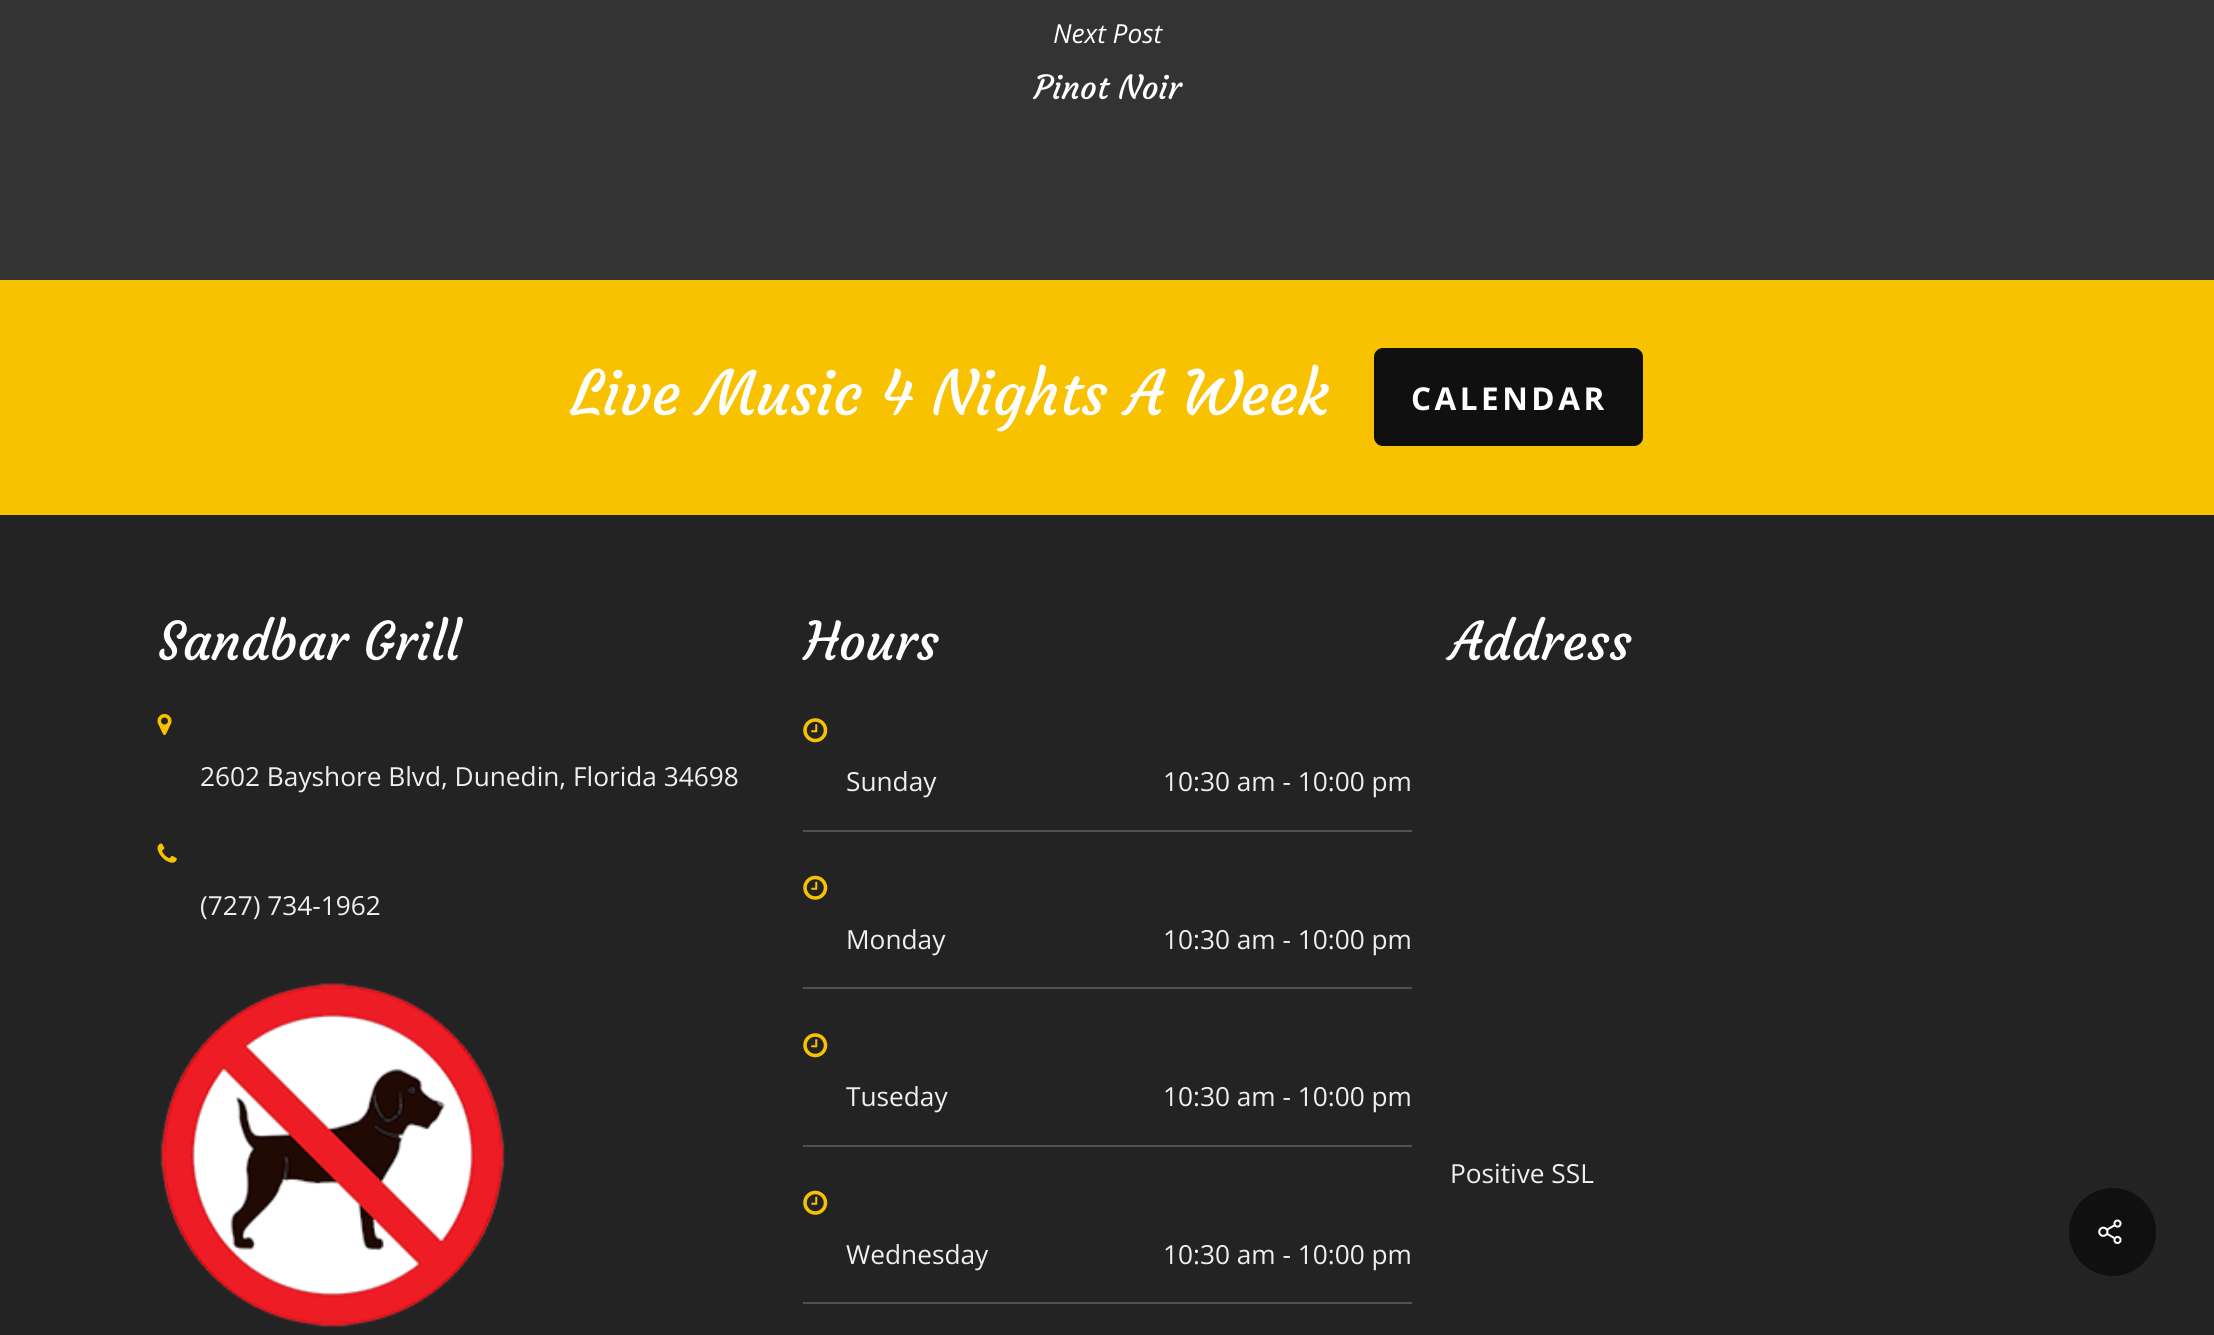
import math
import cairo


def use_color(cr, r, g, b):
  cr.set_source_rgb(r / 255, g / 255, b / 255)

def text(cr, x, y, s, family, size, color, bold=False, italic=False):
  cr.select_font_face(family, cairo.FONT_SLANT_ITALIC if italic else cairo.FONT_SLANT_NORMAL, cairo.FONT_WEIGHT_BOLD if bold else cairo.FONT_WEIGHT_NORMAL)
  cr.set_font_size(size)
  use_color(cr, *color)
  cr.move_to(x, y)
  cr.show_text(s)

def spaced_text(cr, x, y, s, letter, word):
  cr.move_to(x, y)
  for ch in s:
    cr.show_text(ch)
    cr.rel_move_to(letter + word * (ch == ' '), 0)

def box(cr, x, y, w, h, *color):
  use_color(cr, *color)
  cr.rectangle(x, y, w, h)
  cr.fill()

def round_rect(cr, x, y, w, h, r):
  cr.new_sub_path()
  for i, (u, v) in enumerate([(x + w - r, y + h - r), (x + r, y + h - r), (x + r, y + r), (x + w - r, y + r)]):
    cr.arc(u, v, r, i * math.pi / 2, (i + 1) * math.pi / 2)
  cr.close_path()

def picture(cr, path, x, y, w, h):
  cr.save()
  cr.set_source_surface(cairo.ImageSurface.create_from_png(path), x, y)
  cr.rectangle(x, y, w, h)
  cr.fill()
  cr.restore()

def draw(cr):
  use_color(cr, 51, 51, 51)
  cr.paint()
  box(cr, 0, 515, 2214, 820, 35, 35, 35)
  box(cr, 0, 280, 2214, 235, 249, 194, 0)
  use_color(cr, 16, 16, 16)
  round_rect(cr, 1374, 348, 269, 98, 9)
  cr.fill()
  cr.set_source_rgba(0, 0, 0, 0.1)
  cr.new_path()
  cr.move_to(1374, 432)
  cr.line_to(1374, 437)
  cr.curve_to(1374, 442, 1378, 446, 1383, 446)
  cr.line_to(1634, 446)
  cr.curve_to(1639, 446, 1643, 442, 1643, 437)
  cr.line_to(1643, 432)
  cr.curve_to(1643, 437, 1639, 441, 1634, 441)
  cr.line_to(1382, 441)
  cr.curve_to(1378, 441, 1374, 437, 1374, 432)
  cr.close_path()
  cr.fill()
  picture(cr, "img_01.png", 157, 714, 15, 21)
  picture(cr, "img_02.png", 157, 843, 20, 20)
  picture(cr, "img_03.png", 160, 983, 345, 344)
  box(cr, 803, 830, 609, 2, 81, 81, 81)
  picture(cr, "img_04.png", 803, 718, 25, 25)
  box(cr, 803, 987, 609, 2, 81, 81, 81)
  picture(cr, "img_05.png", 803, 875, 25, 25)
  box(cr, 803, 1145, 609, 2, 81, 81, 81)
  picture(cr, "img_04.png", 803, 1033, 25, 25)
  box(cr, 803, 1302, 609, 2, 81, 81, 81)
  picture(cr, "img_05.png", 803, 1190, 25, 25)
  use_color(cr, 16, 16, 16)
  round_rect(cr, 2069, 1188, 87, 88, 43.5)
  cr.fill()
  picture(cr, "img_06.png", 2098, 1219, 24, 25)
  text(cr, 1053, 43, "Next Post", "Open Sans", 26.25, (255, 255, 255), italic=True)
  text(cr, 1034, 99, "Pinot Noir", "Courgette", 32.75, (255, 255, 255))
  text(cr, 571, 415, "Live Music 4 Nights A Week", "Courgette", 61.25, (255, 255, 255))
  cr.select_font_face("Open Sans", cairo.FONT_SLANT_NORMAL, cairo.FONT_WEIGHT_BOLD)
  cr.set_font_size(31.5)
  spaced_text(cr, 1411, 410, "CALENDAR", 3.5, 0)
  text(cr, 158, 660, "Sandbar Grill", "Courgette", 52.5, (255, 255, 255))
  text(cr, 200, 786, "2602 Bayshore Blvd, Dunedin, Florida 34698", "Open Sans", 26.25, (239, 239, 239))
  text(cr, 200, 915, "(727) 734-1962", "Open Sans", 26.25, (239, 239, 239))
  text(cr, 804, 660, "Hours", "Courgette", 52.5, (255, 255, 255))
  text(cr, 846, 791, "Sunday", "Open Sans", 26.25, (239, 239, 239))
  text(cr, 1163, 791, "10:30 am - 10:00 pm", "Open Sans", 26.25, (239, 239, 239))
  text(cr, 846, 949, "Monday", "Open Sans", 26.25, (239, 239, 239))
  text(cr, 1163, 949, "10:30 am - 10:00 pm", "Open Sans", 26.25, (239, 239, 239))
  text(cr, 846, 1106, "Tuseday", "Open Sans", 26.25, (239, 239, 239))
  text(cr, 1163, 1106, "10:30 am - 10:00 pm", "Open Sans", 26.25, (239, 239, 239))
  text(cr, 846, 1264, "Wednesday", "Open Sans", 26.25, (239, 239, 239))
  text(cr, 1163, 1264, "10:30 am - 10:00 pm", "Open Sans", 26.25, (239, 239, 239))
  text(cr, 1450, 660, "Address", "Courgette", 52.5, (255, 255, 255))
  text(cr, 1450, 1183, "Positive SSL", "Open Sans", 26.25, (239, 239, 239))


surface = cairo.ImageSurface(cairo.FORMAT_RGB24, 2214, 1335)
cr = cairo.Context(surface)
options = cairo.FontOptions()
options.set_hint_metrics(cairo.HINT_METRICS_OFF)
options.set_hint_style(cairo.HINT_STYLE_NONE)
cr.set_font_options(options)
cr.set_miter_limit(4)
draw(cr)
surface.write_to_png("out.png")
